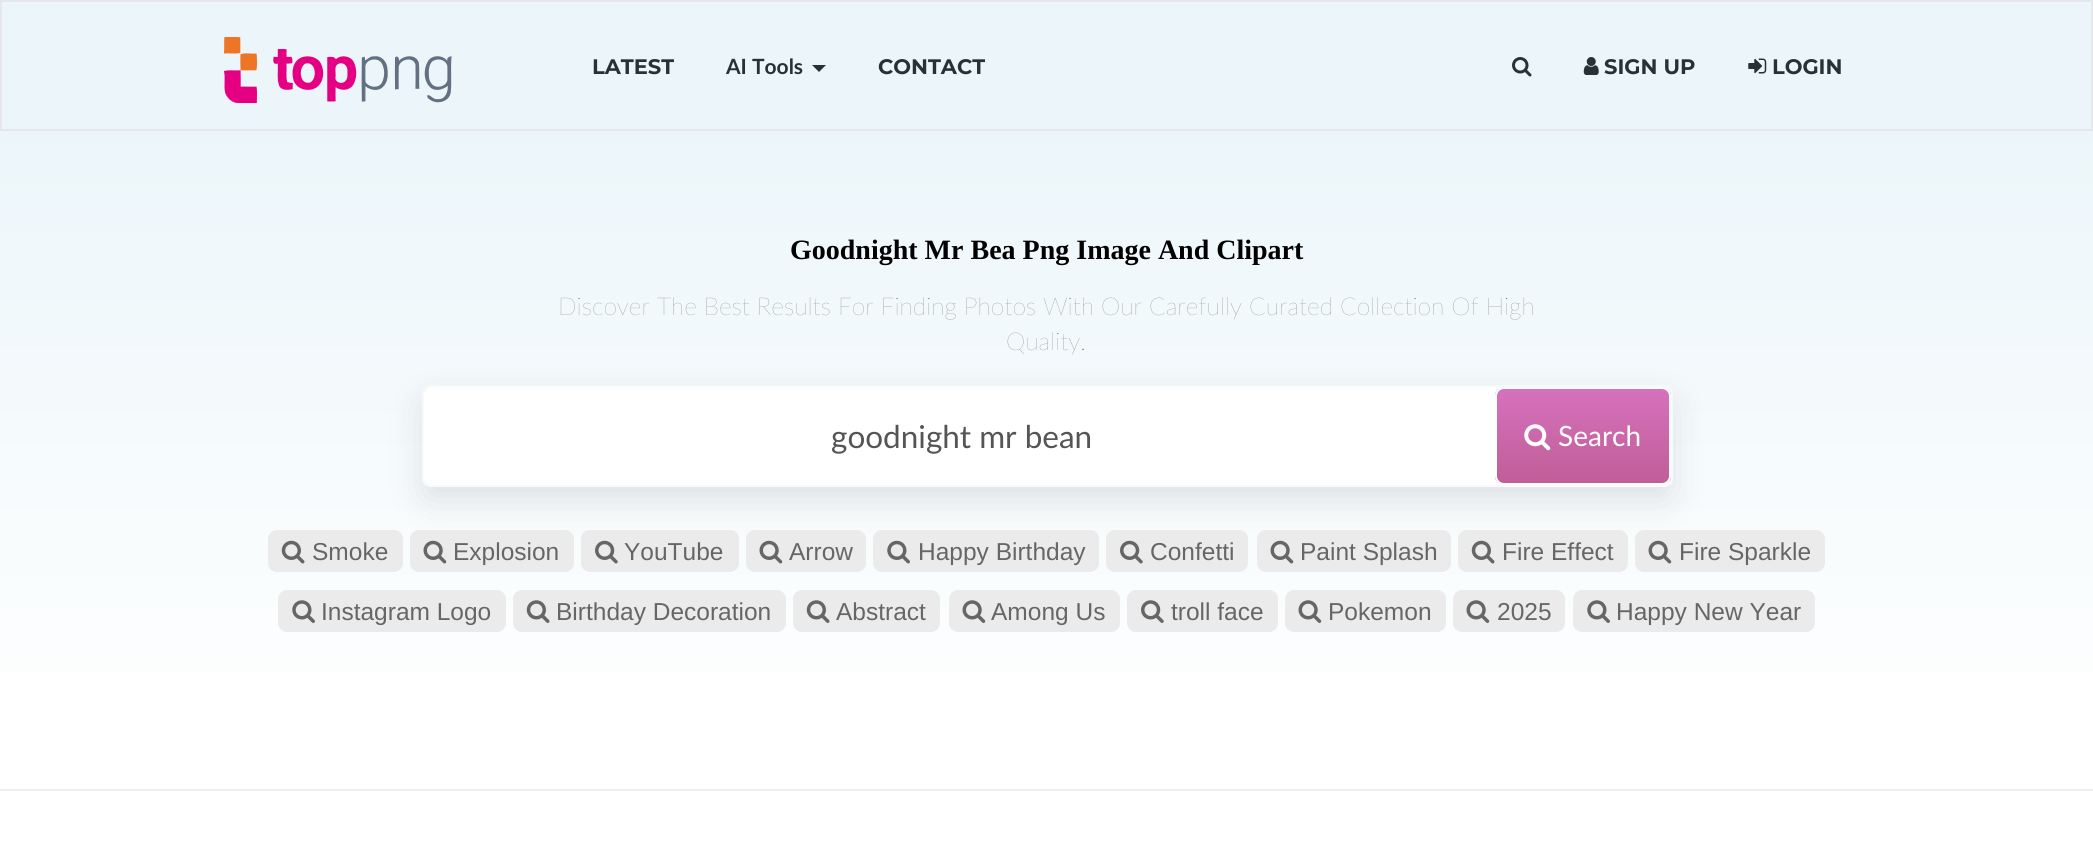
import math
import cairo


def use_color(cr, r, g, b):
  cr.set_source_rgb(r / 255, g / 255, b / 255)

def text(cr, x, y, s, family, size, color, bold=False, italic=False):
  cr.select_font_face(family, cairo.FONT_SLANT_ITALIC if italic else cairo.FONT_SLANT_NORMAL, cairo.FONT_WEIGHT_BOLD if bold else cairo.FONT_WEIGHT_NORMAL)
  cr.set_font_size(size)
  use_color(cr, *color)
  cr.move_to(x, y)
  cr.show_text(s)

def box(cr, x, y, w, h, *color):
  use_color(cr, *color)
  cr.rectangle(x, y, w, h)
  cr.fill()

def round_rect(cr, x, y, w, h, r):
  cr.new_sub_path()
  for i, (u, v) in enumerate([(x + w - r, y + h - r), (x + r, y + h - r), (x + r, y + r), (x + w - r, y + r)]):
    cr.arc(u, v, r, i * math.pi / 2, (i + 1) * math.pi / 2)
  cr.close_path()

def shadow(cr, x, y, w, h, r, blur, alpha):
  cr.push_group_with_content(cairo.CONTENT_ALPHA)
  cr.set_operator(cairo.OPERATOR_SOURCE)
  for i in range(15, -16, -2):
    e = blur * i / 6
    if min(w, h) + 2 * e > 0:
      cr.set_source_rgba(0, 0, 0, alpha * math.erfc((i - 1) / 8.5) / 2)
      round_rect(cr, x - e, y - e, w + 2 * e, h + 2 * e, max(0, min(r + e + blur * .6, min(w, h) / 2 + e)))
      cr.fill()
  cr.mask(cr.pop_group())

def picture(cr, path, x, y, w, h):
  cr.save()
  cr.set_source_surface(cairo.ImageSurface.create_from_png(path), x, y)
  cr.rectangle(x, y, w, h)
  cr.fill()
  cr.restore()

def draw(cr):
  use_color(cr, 255, 255, 255)
  cr.paint()
  use_color(cr, 236, 246, 250)
  cr.rectangle(1, 1, 2091, 129)
  cr.fill_preserve()
  use_color(cr, 229, 231, 235)
  cr.stroke()
  picture(cr, "img_01.png", 224, 37, 228, 66)
  use_color(cr, 38, 50, 56)
  cr.new_path()
  cr.move_to(812, 65)
  cr.line_to(826, 65)
  cr.line_to(819, 72)
  cr.close_path()
  cr.fill()
  picture(cr, "img_02.png", 1512, 57, 20, 20)
  picture(cr, "img_03.png", 1583, 57, 16, 18)
  picture(cr, "img_04.png", 1748, 58, 19, 16)
  gradient = cairo.LinearGradient(1047, 131, 1047, 754)
  gradient.add_color_stop_rgba(0, 0.925, 0.965, 0.98, 1)
  gradient.add_color_stop_rgba(1, 1, 1, 1, 1)
  cr.set_source(gradient)
  cr.rectangle(0, 131, 2093, 541)
  cr.fill()
  cr.save()
  cr.set_fill_rule(cairo.FILL_RULE_EVEN_ODD)
  cr.new_path()
  cr.move_to(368, 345)
  cr.line_to(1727, 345)
  cr.line_to(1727, 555)
  cr.line_to(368, 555)
  cr.close_path()
  cr.move_to(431, 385)
  cr.line_to(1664, 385)
  cr.curve_to(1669, 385, 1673, 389, 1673, 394)
  cr.line_to(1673, 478)
  cr.curve_to(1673, 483, 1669, 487, 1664, 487)
  cr.line_to(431, 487)
  cr.curve_to(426, 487, 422, 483, 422, 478)
  cr.line_to(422, 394)
  cr.curve_to(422, 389, 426, 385, 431, 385)
  cr.close_path()
  cr.clip()
  use_color(cr, 0, 0, 0)
  shadow(cr, 422, 399, 1251, 102, 9, 17.5, 0.1)
  cr.restore()
  use_color(cr, 255, 255, 255)
  cr.new_path()
  cr.move_to(433, 387)
  cr.line_to(1496, 387)
  cr.line_to(1496, 485)
  cr.line_to(433, 485)
  cr.curve_to(428, 485, 424, 481, 424, 476)
  cr.line_to(424, 396)
  cr.curve_to(424, 391, 428, 387, 433, 387)
  cr.close_path()
  cr.fill()
  cr.save()
  round_rect(cr, 1495, 387, 176, 98, 9)
  cr.clip()
  gradient = cairo.LinearGradient(1583, 389, 1583, 483)
  gradient.add_color_stop_rgba(0, 0.839, 0.443, 0.741, 1)
  gradient.add_color_stop_rgba(1, 0.753, 0.369, 0.592, 1)
  cr.set_source(gradient)
  cr.rectangle(1495, 389, 176, 94)
  cr.fill()
  cr.restore()
  round_rect(cr, 1496, 388, 174, 96, 8)
  cr.stroke()
  picture(cr, "img_05.png", 1524, 424, 27, 27)
  use_color(cr, 235, 235, 235)
  round_rect(cr, 268, 530, 135, 42, 9)
  cr.fill()
  picture(cr, "img_06.png", 281, 540, 24, 24)
  round_rect(cr, 410, 530, 164, 42, 9)
  cr.fill()
  picture(cr, "img_07.png", 423, 540, 24, 24)
  round_rect(cr, 581, 530, 158, 42, 9)
  cr.fill()
  picture(cr, "img_08.png", 595, 540, 23, 24)
  round_rect(cr, 746, 530, 120, 42, 9)
  cr.fill()
  picture(cr, "img_07.png", 759, 540, 24, 24)
  round_rect(cr, 873, 530, 226, 42, 9)
  cr.fill()
  picture(cr, "img_09.png", 887, 540, 23, 24)
  round_rect(cr, 1106, 530, 142, 42, 9)
  cr.fill()
  picture(cr, "img_08.png", 1120, 540, 23, 24)
  round_rect(cr, 1257, 530, 194, 42, 9)
  cr.fill()
  picture(cr, "img_07.png", 1270, 540, 24, 24)
  round_rect(cr, 1458, 530, 170, 42, 9)
  cr.fill()
  picture(cr, "img_06.png", 1471, 540, 24, 24)
  round_rect(cr, 1635, 530, 190, 42, 9)
  cr.fill()
  picture(cr, "img_07.png", 1648, 540, 24, 24)
  round_rect(cr, 278, 590, 228, 42, 9)
  cr.fill()
  picture(cr, "img_10.png", 292, 600, 23, 23)
  round_rect(cr, 513, 590, 273, 42, 9)
  cr.fill()
  picture(cr, "img_11.png", 526, 600, 24, 23)
  round_rect(cr, 793, 590, 147, 42, 9)
  cr.fill()
  picture(cr, "img_11.png", 806, 600, 24, 23)
  round_rect(cr, 949, 590, 171, 42, 9)
  cr.fill()
  picture(cr, "img_12.png", 962, 600, 24, 23)
  round_rect(cr, 1127, 590, 151, 42, 9)
  cr.fill()
  picture(cr, "img_13.png", 1141, 600, 23, 23)
  round_rect(cr, 1285, 590, 161, 42, 9)
  cr.fill()
  picture(cr, "img_12.png", 1298, 600, 24, 23)
  round_rect(cr, 1453, 590, 112, 42, 9)
  cr.fill()
  picture(cr, "img_12.png", 1466, 600, 24, 23)
  round_rect(cr, 1573, 590, 242, 42, 9)
  cr.fill()
  picture(cr, "img_10.png", 1587, 600, 23, 23)
  box(cr, 0, 789, 2093, 2, 238, 238, 238)
  text(cr, 592, 74, "LATEST", "Montserrat", 21, (38, 50, 56), bold=True)
  text(cr, 726, 74, "AI Tools", "Lato", 21, (38, 50, 56), bold=True)
  text(cr, 878, 74, "CONTACT", "Montserrat", 21, (38, 50, 56), bold=True)
  text(cr, 1604, 74, "SIGN UP", "Montserrat", 21, (38, 50, 56), bold=True)
  text(cr, 1772, 74, "LOGIN", "Montserrat", 21, (38, 50, 56), bold=True)
  text(cr, 790, 259, "Goodnight Mr Bea Png Image And Clipart", "Liberation Serif", 28, (0, 0, 0), bold=True)
  text(cr, 558, 315, "Discover The Best Results For Finding Photos With Our Carefully Curated Collection Of High", "Lato ExtraLight", 24.5, (119, 119, 119))
  text(cr, 1006, 350, "Quality.", "Lato ExtraLight", 24.5, (119, 119, 119))
  text(cr, 831, 448, "goodnight mr bean", "Lato", 31.5, (85, 85, 85))
  text(cr, 1558, 446, "Search", "Lato", 28, (255, 255, 255))
  text(cr, 312, 560, "Smoke", "Liberation Sans", 24.5, (102, 102, 102))
  text(cr, 453, 560, "Explosion", "Liberation Sans", 24.5, (102, 102, 102))
  text(cr, 624, 560, "YouTube", "Liberation Sans", 24.5, (102, 102, 102))
  text(cr, 789, 560, "Arrow", "Liberation Sans", 24.5, (102, 102, 102))
  text(cr, 918, 560, "Happy Birthday", "Liberation Sans", 24.5, (102, 102, 102))
  text(cr, 1150, 560, "Confetti", "Liberation Sans", 24.5, (102, 102, 102))
  text(cr, 1300, 560, "Paint Splash", "Liberation Sans", 24.5, (102, 102, 102))
  text(cr, 1502, 560, "Fire Effect", "Liberation Sans", 24.5, (102, 102, 102))
  text(cr, 1679, 560, "Fire Sparkle", "Liberation Sans", 24.5, (102, 102, 102))
  text(cr, 321, 620, "Instagram Logo", "Liberation Sans", 24.5, (102, 102, 102))
  text(cr, 556, 620, "Birthday Decoration", "Liberation Sans", 24.5, (102, 102, 102))
  text(cr, 836, 620, "Abstract", "Liberation Sans", 24.5, (102, 102, 102))
  text(cr, 991, 620, "Among Us", "Liberation Sans", 24.5, (102, 102, 102))
  text(cr, 1171, 620, "troll face", "Liberation Sans", 24.5, (102, 102, 102))
  text(cr, 1328, 620, "Pokemon", "Liberation Sans", 24.5, (102, 102, 102))
  text(cr, 1497, 620, "2025", "Liberation Sans", 24.5, (102, 102, 102))
  text(cr, 1616, 620, "Happy New Year", "Liberation Sans", 24.5, (102, 102, 102))


surface = cairo.ImageSurface(cairo.FORMAT_RGB24, 2093, 858)
cr = cairo.Context(surface)
options = cairo.FontOptions()
options.set_hint_metrics(cairo.HINT_METRICS_OFF)
options.set_hint_style(cairo.HINT_STYLE_NONE)
cr.set_font_options(options)
cr.set_miter_limit(4)
draw(cr)
surface.write_to_png("out.png")
